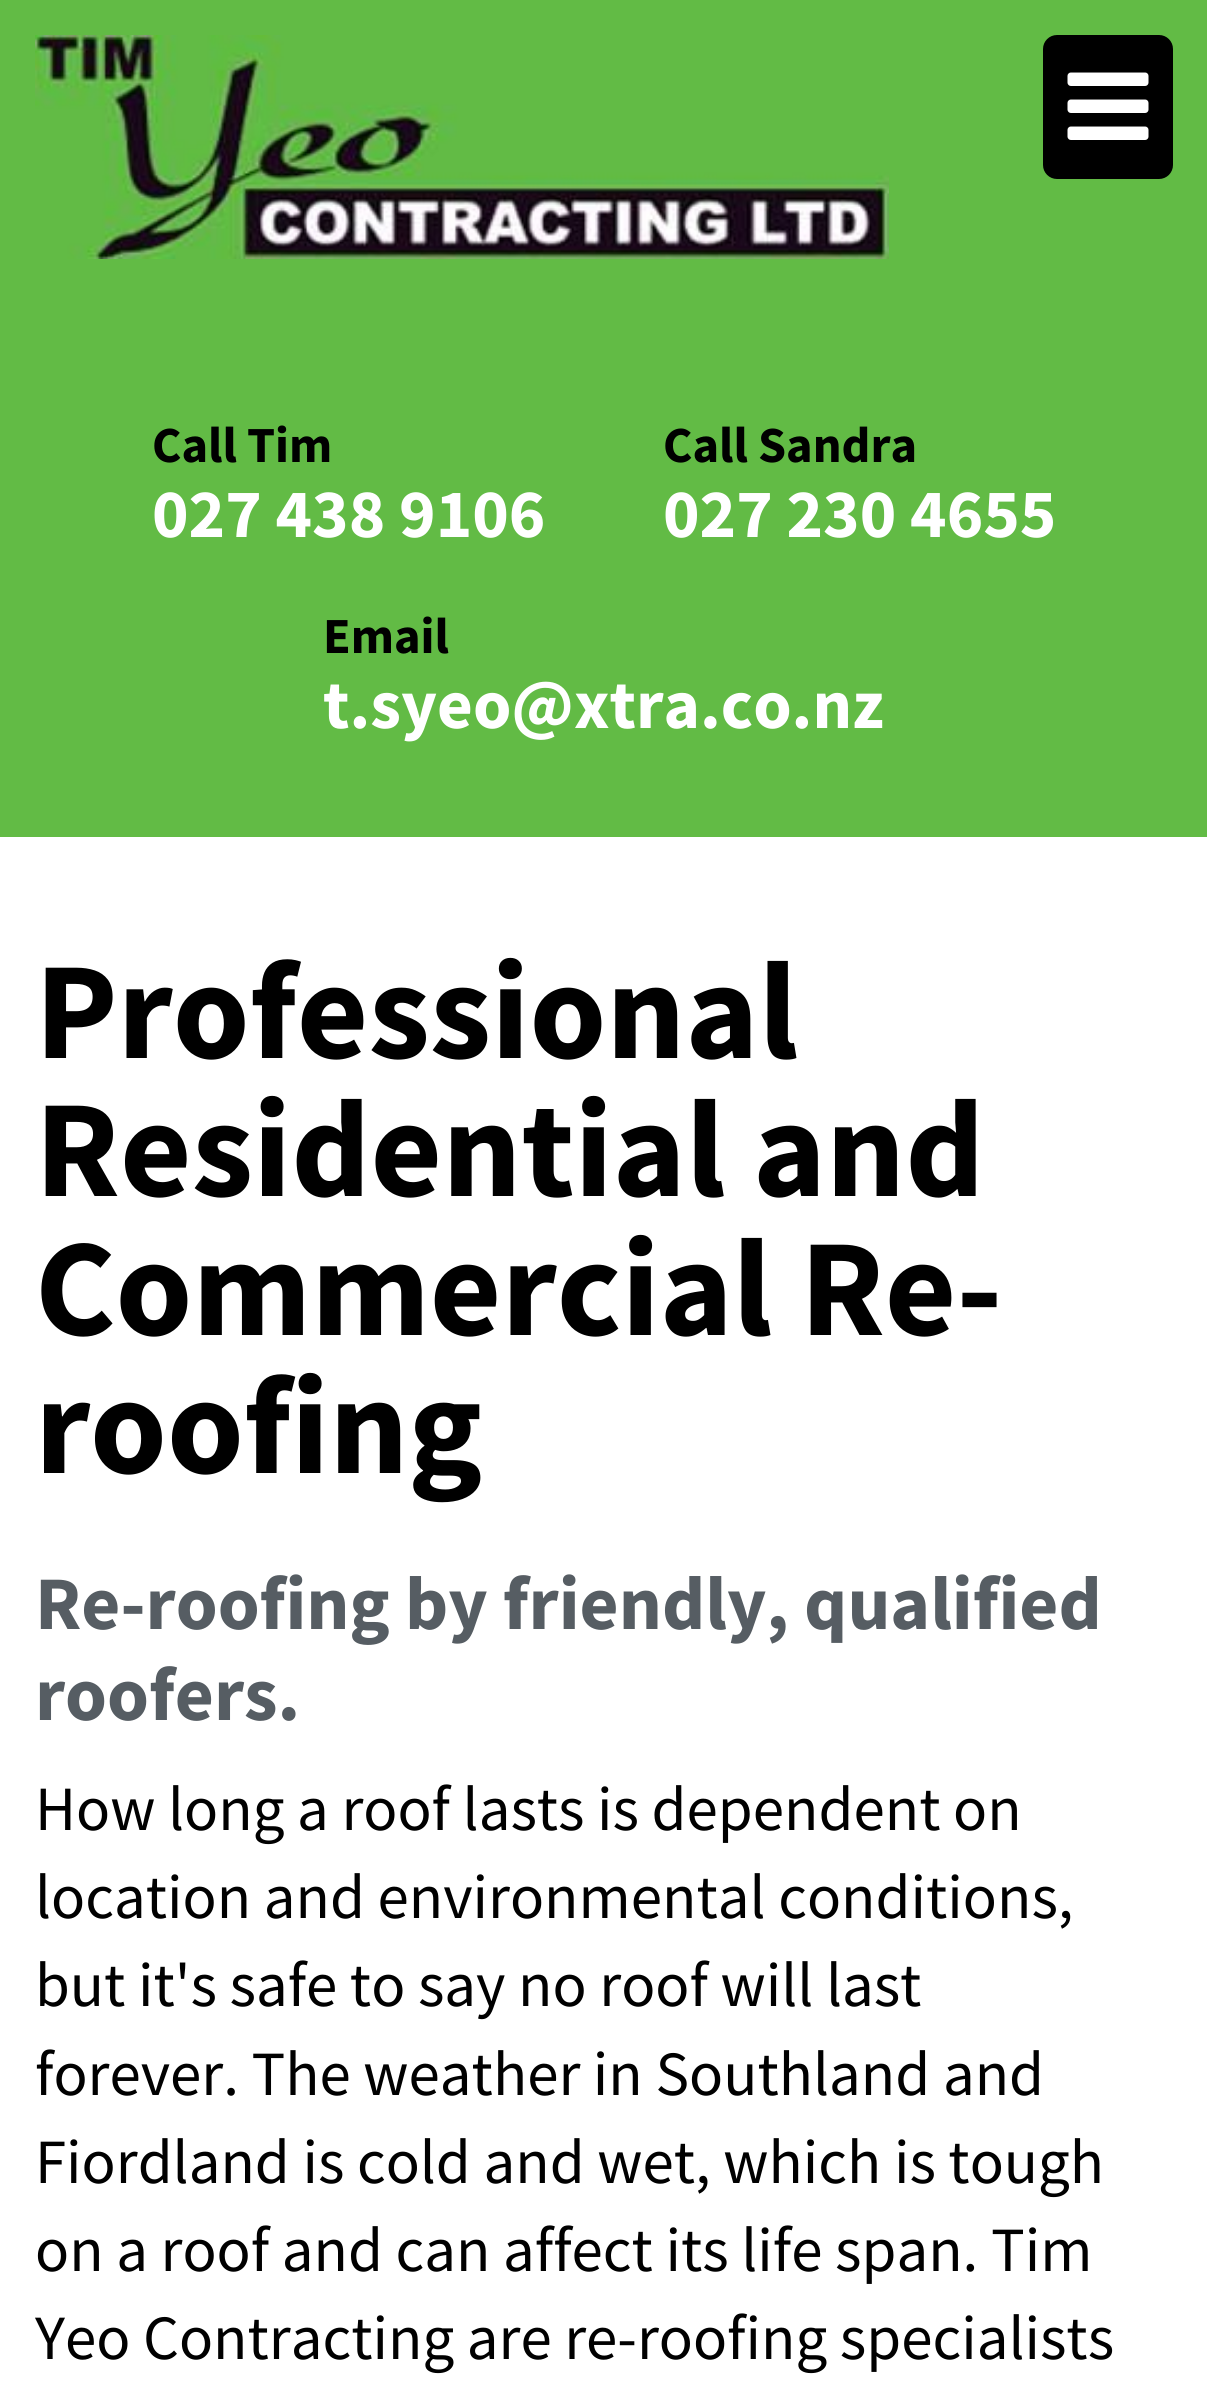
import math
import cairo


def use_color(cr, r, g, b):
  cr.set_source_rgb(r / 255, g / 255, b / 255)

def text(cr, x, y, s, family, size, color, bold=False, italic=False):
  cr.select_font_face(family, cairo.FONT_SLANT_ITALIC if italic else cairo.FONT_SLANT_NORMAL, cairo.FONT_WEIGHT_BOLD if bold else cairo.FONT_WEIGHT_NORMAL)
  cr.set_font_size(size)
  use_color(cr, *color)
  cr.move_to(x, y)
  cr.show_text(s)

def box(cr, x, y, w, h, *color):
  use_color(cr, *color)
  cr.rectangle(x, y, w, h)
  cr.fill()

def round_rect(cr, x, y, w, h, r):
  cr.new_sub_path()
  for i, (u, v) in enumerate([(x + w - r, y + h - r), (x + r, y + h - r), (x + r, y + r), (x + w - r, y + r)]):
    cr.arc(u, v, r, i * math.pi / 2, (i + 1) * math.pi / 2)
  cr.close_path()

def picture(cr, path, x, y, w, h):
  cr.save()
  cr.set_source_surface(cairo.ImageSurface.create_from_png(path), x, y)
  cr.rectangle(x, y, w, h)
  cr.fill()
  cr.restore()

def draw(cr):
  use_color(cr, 255, 255, 255)
  cr.paint()
  box(cr, 0, 0, 1207, 837, 98, 187, 69)
  picture(cr, "img_01.png", 35, 35, 854, 224)
  use_color(cr, 0, 0, 0)
  round_rect(cr, 1043, 35, 130, 144, 14)
  cr.fill()
  picture(cr, "img_02.png", 1067, 72, 82, 68)
  text(cr, 152, 462, "Call Tim", "Source Sans Pro", 50.5, (0, 0, 0), bold=True)
  text(cr, 152, 537, "027 438 9106", "Source Sans Pro", 69.25, (255, 255, 255), bold=True)
  text(cr, 663, 462, "Call Sandra", "Source Sans Pro", 50.5, (0, 0, 0), bold=True)
  text(cr, 663, 537, "027 230 4655", "Source Sans Pro", 69.25, (255, 255, 255), bold=True)
  text(cr, 323, 653, "Email", "Source Sans Pro", 50.5, (0, 0, 0), bold=True)
  text(cr, 323, 728, "t.syeo@xtra.co.nz", "Source Sans Pro", 69.25, (255, 255, 255), bold=True)
  text(cr, 35, 1058, "Professional", "Source Sans Pro", 138.5, (0, 0, 0), bold=True)
  text(cr, 35, 1196, "Residential and", "Source Sans Pro", 138.5, (0, 0, 0), bold=True)
  text(cr, 35, 1335, "Commercial Re-", "Source Sans Pro", 138.5, (0, 0, 0), bold=True)
  text(cr, 35, 1473, "roofing", "Source Sans Pro", 138.5, (0, 0, 0), bold=True)
  text(cr, 35, 1629, "Re-roofing by friendly, qualified", "Source Sans Pro", 75.6, (86, 93, 99), bold=True)
  text(cr, 35, 1720, "roofers.", "Source Sans Pro", 75.6, (86, 93, 99), bold=True)
  text(cr, 35, 1830, "How long a roof lasts is dependent on", "Source Sans Pro", 63, (0, 0, 0))
  text(cr, 35, 1918, "location and environmental conditions,", "Source Sans Pro", 63, (0, 0, 0))
  text(cr, 35, 2006, "but it's safe to say no roof will last", "Source Sans Pro", 63, (0, 0, 0))
  text(cr, 35, 2095, "forever. The weather in Southland and", "Source Sans Pro", 63, (0, 0, 0))
  text(cr, 35, 2183, "Fiordland is cold and wet, which is tough", "Source Sans Pro", 63, (0, 0, 0))
  text(cr, 35, 2271, "on a roof and can affect its life span. Tim", "Source Sans Pro", 63, (0, 0, 0))
  text(cr, 35, 2359, "Yeo Contracting are re-roofing specialists", "Source Sans Pro", 63, (0, 0, 0))


surface = cairo.ImageSurface(cairo.FORMAT_RGB24, 1207, 2386)
cr = cairo.Context(surface)
options = cairo.FontOptions()
options.set_hint_metrics(cairo.HINT_METRICS_OFF)
options.set_hint_style(cairo.HINT_STYLE_NONE)
cr.set_font_options(options)
cr.set_miter_limit(4)
draw(cr)
surface.write_to_png("out.png")
